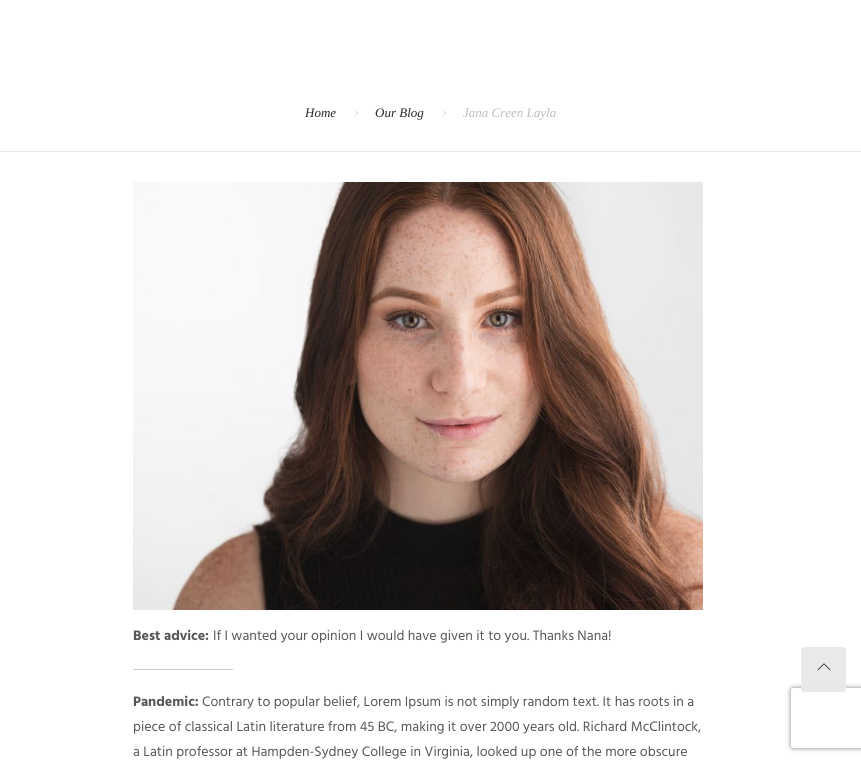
import math
import cairo


def use_color(cr, r, g, b):
  cr.set_source_rgb(r / 255, g / 255, b / 255)

def text(cr, x, y, s, family, size, color, bold=False, italic=False):
  cr.select_font_face(family, cairo.FONT_SLANT_ITALIC if italic else cairo.FONT_SLANT_NORMAL, cairo.FONT_WEIGHT_BOLD if bold else cairo.FONT_WEIGHT_NORMAL)
  cr.set_font_size(size)
  use_color(cr, *color)
  cr.move_to(x, y)
  cr.show_text(s)

def box(cr, x, y, w, h, *color):
  use_color(cr, *color)
  cr.rectangle(x, y, w, h)
  cr.fill()

def round_rect(cr, x, y, w, h, r):
  cr.new_sub_path()
  for i, (u, v) in enumerate([(x + w - r, y + h - r), (x + r, y + h - r), (x + r, y + r), (x + w - r, y + r)]):
    cr.arc(u, v, r, i * math.pi / 2, (i + 1) * math.pi / 2)
  cr.close_path()

def shadow(cr, x, y, w, h, r, blur, alpha):
  cr.push_group_with_content(cairo.CONTENT_ALPHA)
  cr.set_operator(cairo.OPERATOR_SOURCE)
  for i in range(15, -16, -2):
    e = blur * i / 6
    if min(w, h) + 2 * e > 0:
      cr.set_source_rgba(0, 0, 0, alpha * math.erfc((i - 1) / 8.5) / 2)
      round_rect(cr, x - e, y - e, w + 2 * e, h + 2 * e, max(0, min(r + e + blur * .6, min(w, h) / 2 + e)))
      cr.fill()
  cr.mask(cr.pop_group())

def picture(cr, path, x, y, w, h):
  cr.save()
  cr.set_source_surface(cairo.ImageSurface.create_from_png(path), x, y)
  cr.rectangle(x, y, w, h)
  cr.fill()
  cr.restore()

def draw(cr):
  use_color(cr, 255, 255, 255)
  cr.paint()
  box(cr, 0, 151, 861, 1, 232, 232, 232)
  picture(cr, "img_01.png", 354, 110, 4, 7)
  picture(cr, "img_01.png", 442, 110, 4, 7)
  picture(cr, "img_02.png", 133, 182, 570, 428)
  box(cr, 133, 669, 100, 1, 204, 204, 204)
  cr.save()
  cr.set_fill_rule(cairo.FILL_RULE_EVEN_ODD)
  cr.new_path()
  cr.move_to(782, 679)
  cr.line_to(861, 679)
  cr.line_to(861, 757)
  cr.line_to(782, 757)
  cr.close_path()
  cr.move_to(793, 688)
  cr.line_to(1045, 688)
  cr.curve_to(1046, 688, 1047, 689, 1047, 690)
  cr.line_to(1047, 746)
  cr.curve_to(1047, 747, 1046, 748, 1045, 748)
  cr.line_to(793, 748)
  cr.curve_to(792, 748, 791, 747, 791, 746)
  cr.line_to(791, 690)
  cr.curve_to(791, 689, 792, 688, 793, 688)
  cr.close_path()
  cr.clip()
  use_color(cr, 128, 128, 128)
  shadow(cr, 791, 688, 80, 60, 2, 2.5, 1)
  cr.restore()
  cr.set_source_rgba(0.91, 0.91, 0.91, 0.98)
  round_rect(cr, 801, 647, 45, 45, 3)
  cr.fill()
  picture(cr, "img_03.png", 817, 663, 14, 8)
  text(cr, 305, 117, "Home", "Liberation Serif", 13, (40, 38, 43), italic=True)
  text(cr, 375, 117, "Our Blog", "Liberation Serif", 13, (40, 38, 43), italic=True)
  text(cr, 463, 117, "Jana Creen Layla", "Liberation Serif", 13, (188, 188, 188), italic=True)
  text(cr, 133, 640, "Best advice:", "Hind", 14, (86, 86, 86), bold=True)
  text(cr, 213, 640, "If I wanted your opinion I would have given it to you. Thanks Nana!", "Hind", 14, (86, 86, 86))
  text(cr, 133, 706, "Pandemic:", "Hind", 14, (86, 86, 86), bold=True)
  text(cr, 202, 706, "Contrary to popular belief, Lorem Ipsum is not simply random text. It has roots in a", "Hind", 14, (86, 86, 86))
  text(cr, 133, 731, "piece of classical Latin literature from 45 BC, making it over 2000 years old. Richard McClintock,", "Hind", 14, (86, 86, 86))
  text(cr, 133, 756, "a Latin professor at Hampden-Sydney College in Virginia, looked up one of the more obscure", "Hind", 14, (86, 86, 86))


surface = cairo.ImageSurface(cairo.FORMAT_RGB24, 861, 762)
cr = cairo.Context(surface)
options = cairo.FontOptions()
options.set_hint_metrics(cairo.HINT_METRICS_OFF)
options.set_hint_style(cairo.HINT_STYLE_NONE)
cr.set_font_options(options)
cr.set_miter_limit(4)
draw(cr)
surface.write_to_png("out.png")
